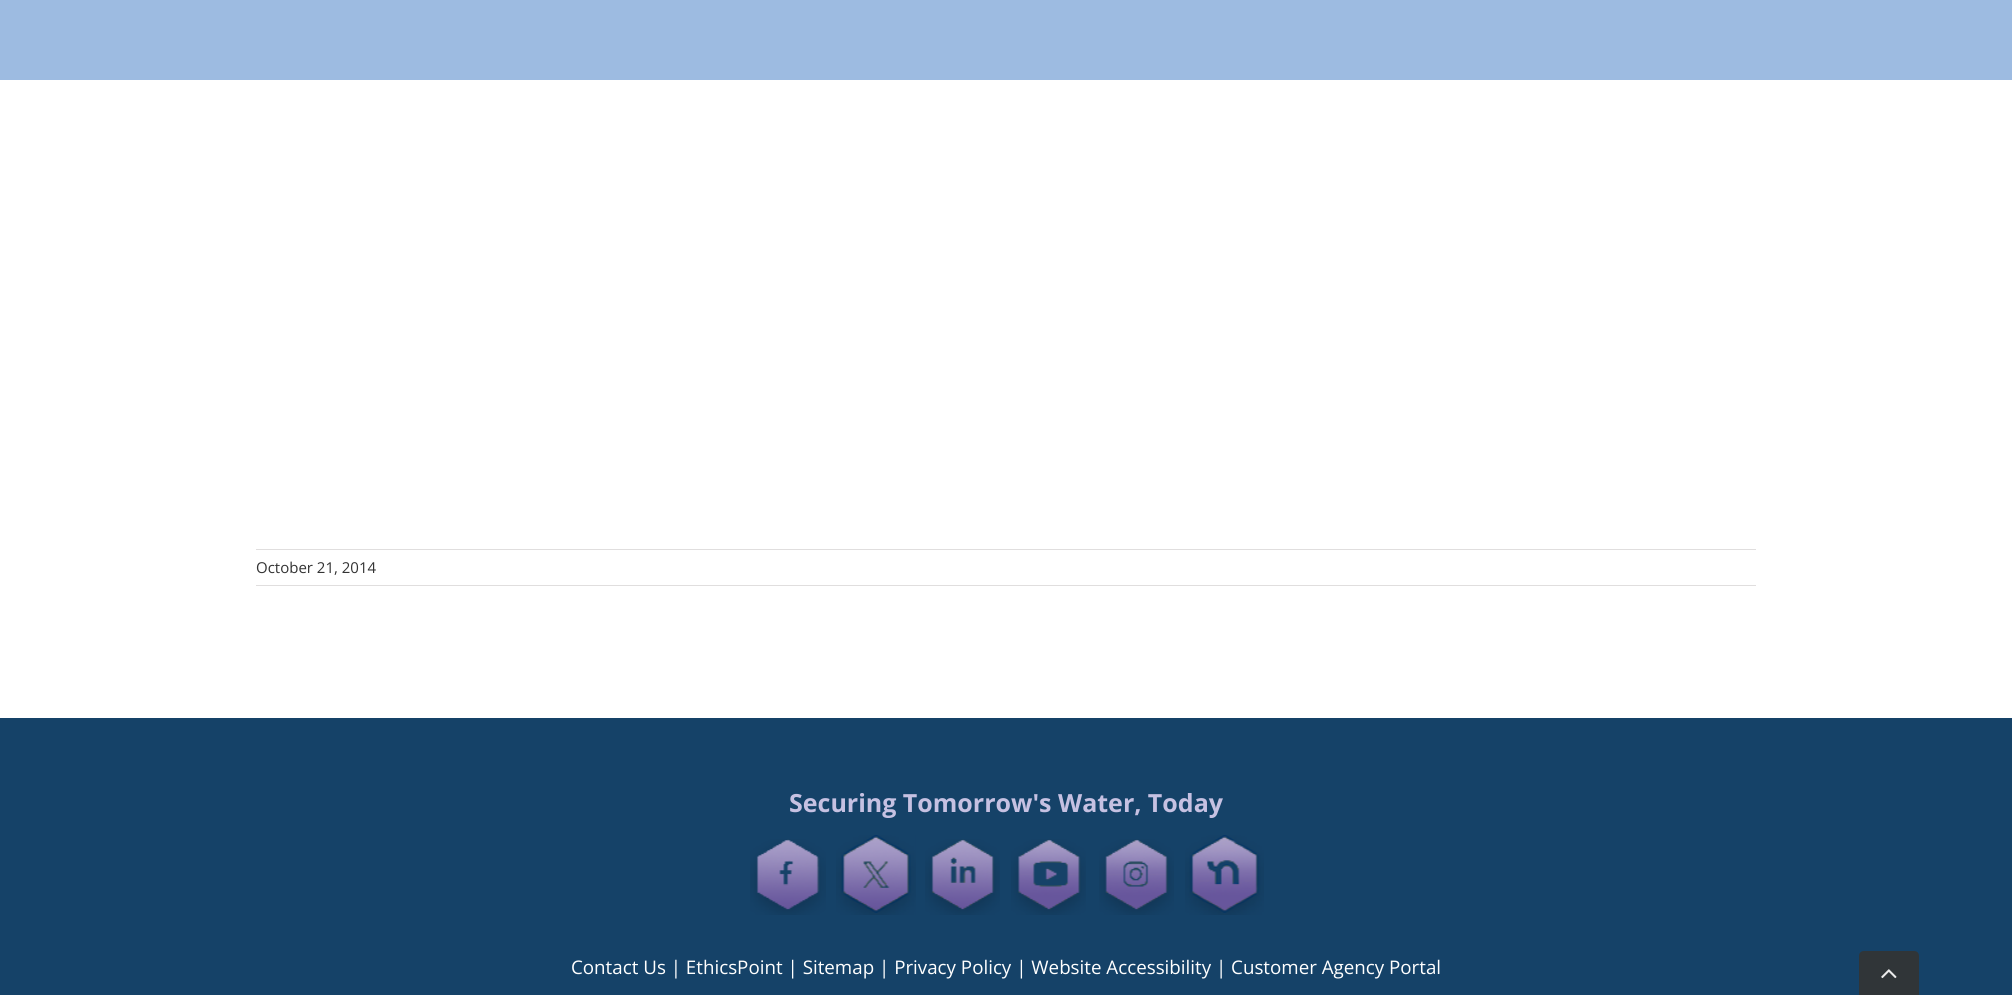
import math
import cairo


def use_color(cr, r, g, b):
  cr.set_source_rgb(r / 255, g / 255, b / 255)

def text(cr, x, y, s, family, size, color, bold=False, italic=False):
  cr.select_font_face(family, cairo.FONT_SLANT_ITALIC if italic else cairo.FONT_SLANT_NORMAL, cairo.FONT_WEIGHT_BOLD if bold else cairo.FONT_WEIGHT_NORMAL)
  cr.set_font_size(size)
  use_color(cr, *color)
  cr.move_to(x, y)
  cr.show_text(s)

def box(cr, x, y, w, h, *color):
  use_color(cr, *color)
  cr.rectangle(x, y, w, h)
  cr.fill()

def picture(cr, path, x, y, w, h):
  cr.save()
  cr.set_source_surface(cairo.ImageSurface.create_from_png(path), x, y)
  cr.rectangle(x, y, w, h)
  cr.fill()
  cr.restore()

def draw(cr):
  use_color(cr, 255, 255, 255)
  cr.paint()
  box(cr, 0, 0, 2012, 80, 157, 187, 225)
  box(cr, 256, 549, 1500, 1, 224, 222, 222)
  box(cr, 256, 585, 1500, 1, 224, 222, 222)
  box(cr, 0, 718, 2012, 277, 21, 66, 104)
  picture(cr, "img_01.png", 750, 839, 76, 76)
  picture(cr, "img_02.png", 836, 835, 80, 80)
  picture(cr, "img_03.png", 925, 839, 75, 76)
  picture(cr, "img_04.png", 1011, 839, 75, 76)
  picture(cr, "img_05.png", 1099, 839, 75, 76)
  picture(cr, "img_06.png", 1185, 835, 79, 80)
  use_color(cr, 48, 53, 56)
  cr.new_path()
  cr.move_to(1864, 951)
  cr.line_to(1914, 951)
  cr.curve_to(1917, 951, 1919, 953, 1919, 956)
  cr.line_to(1919, 995)
  cr.line_to(1859, 995)
  cr.line_to(1859, 956)
  cr.curve_to(1859, 953, 1861, 951, 1864, 951)
  cr.close_path()
  cr.fill()
  picture(cr, "img_07.png", 1881, 969, 16, 10)
  text(cr, 256, 573, "October 21, 2014", "Open Sans", 15, (51, 51, 51))
  text(cr, 789, 812, "Securing Tomorrow's Water, Today", "Open Sans", 25, (198, 193, 226), bold=True)
  text(cr, 571, 974, "Contact Us | EthicsPoint | Sitemap | Privacy Policy | Website Accessibility | Customer Agency Portal", "Open Sans", 18.75, (255, 255, 255))


surface = cairo.ImageSurface(cairo.FORMAT_RGB24, 2012, 995)
cr = cairo.Context(surface)
options = cairo.FontOptions()
options.set_hint_metrics(cairo.HINT_METRICS_OFF)
options.set_hint_style(cairo.HINT_STYLE_NONE)
cr.set_font_options(options)
cr.set_miter_limit(4)
draw(cr)
surface.write_to_png("out.png")
